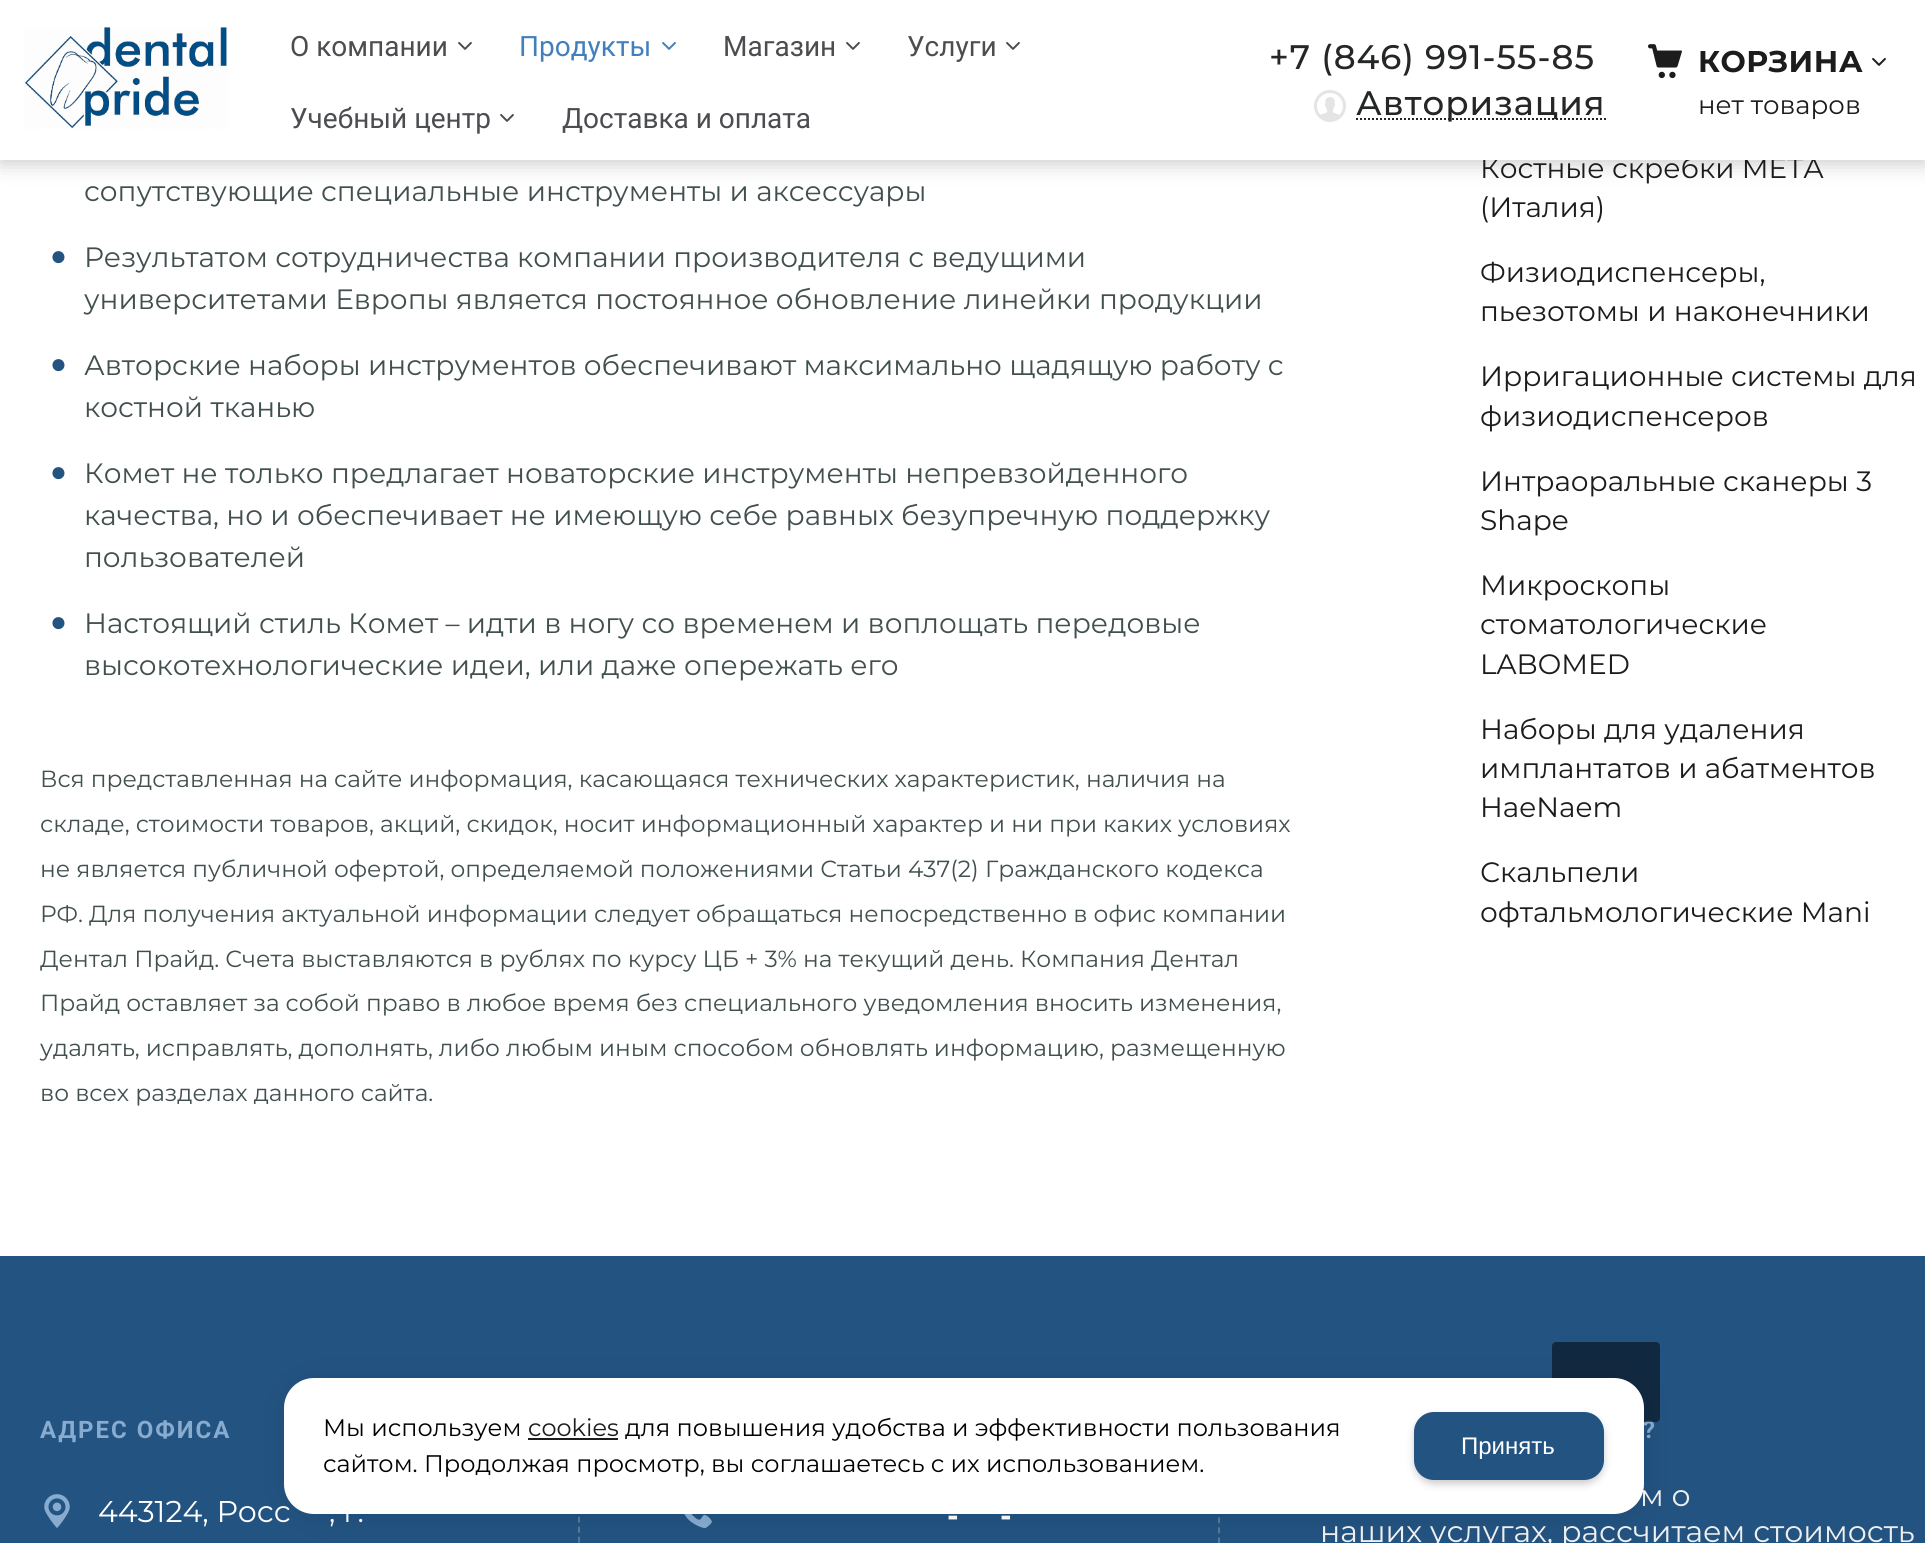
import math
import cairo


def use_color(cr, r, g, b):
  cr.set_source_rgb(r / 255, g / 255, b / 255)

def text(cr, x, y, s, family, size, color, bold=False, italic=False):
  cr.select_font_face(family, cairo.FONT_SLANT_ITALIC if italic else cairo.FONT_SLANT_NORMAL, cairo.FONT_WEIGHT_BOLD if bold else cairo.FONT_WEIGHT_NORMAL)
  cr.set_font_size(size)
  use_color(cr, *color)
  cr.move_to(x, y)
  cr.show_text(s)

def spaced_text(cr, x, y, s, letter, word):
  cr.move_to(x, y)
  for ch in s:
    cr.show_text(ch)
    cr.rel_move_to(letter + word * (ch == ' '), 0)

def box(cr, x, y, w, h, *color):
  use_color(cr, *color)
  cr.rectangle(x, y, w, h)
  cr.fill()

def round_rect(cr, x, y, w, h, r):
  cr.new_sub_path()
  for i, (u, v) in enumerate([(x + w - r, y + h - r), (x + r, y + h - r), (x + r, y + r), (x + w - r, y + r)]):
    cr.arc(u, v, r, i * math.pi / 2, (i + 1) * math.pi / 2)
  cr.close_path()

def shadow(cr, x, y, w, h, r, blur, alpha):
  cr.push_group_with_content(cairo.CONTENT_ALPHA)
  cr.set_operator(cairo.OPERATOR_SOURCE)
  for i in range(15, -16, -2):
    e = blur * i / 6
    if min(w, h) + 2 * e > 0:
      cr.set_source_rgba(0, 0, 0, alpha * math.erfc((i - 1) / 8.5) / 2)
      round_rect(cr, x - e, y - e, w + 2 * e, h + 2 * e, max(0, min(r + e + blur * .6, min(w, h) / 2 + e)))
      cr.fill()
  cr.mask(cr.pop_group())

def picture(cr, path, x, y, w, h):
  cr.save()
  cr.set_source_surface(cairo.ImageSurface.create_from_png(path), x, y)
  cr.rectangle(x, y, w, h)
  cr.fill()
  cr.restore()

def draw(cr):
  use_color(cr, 255, 255, 255)
  cr.paint()
  use_color(cr, 0, 0, 0)
  shadow(cr, 0, 4, 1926, 160, 0, 10, 0.2)
  box(cr, 0, 1256, 1925, 287, 35, 83, 129)
  cr.new_path()
  cr.move_to(579, 1416)
  cr.line_to(579, 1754)
  use_color(cr, 83, 121, 157)
  cr.set_dash([6, 4.06])
  cr.stroke()
  picture(cr, "img_07.png", 44, 1494, 26, 34)
  picture(cr, "img_08.png", 684, 1514, 28, 15)
  cr.new_path()
  cr.move_to(1219, 1416)
  cr.line_to(1219, 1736)
  cr.set_dash([6, 4.12])
  cr.stroke()
  text(cr, 84, 201, "сопутствующие специальные инструменты и аксессуары", "Montserrat", 28, (65, 79, 78))
  text(cr, 50, 265, "●", "Liberation Sans", 28, (35, 83, 129))
  text(cr, 84, 267, "Результатом сотрудничества компании производителя с ведущими", "Montserrat", 28, (65, 79, 78))
  text(cr, 84, 309, "университетами Европы является постоянное обновление линейки продукции", "Montserrat", 28, (65, 79, 78))
  text(cr, 50, 373, "●", "Liberation Sans", 28, (35, 83, 129))
  text(cr, 84, 375, "Авторские наборы инструментов обеспечивают максимально щадящую работу с", "Montserrat", 28, (65, 79, 78))
  text(cr, 84, 417, "костной тканью", "Montserrat", 28, (65, 79, 78))
  text(cr, 50, 481, "●", "Liberation Sans", 28, (35, 83, 129))
  text(cr, 84, 483, "Комет не только предлагает новаторские инструменты непревзойденного", "Montserrat", 28, (65, 79, 78))
  text(cr, 84, 525, "качества, но и обеспечивает не имеющую себе равных безупречную поддержку", "Montserrat", 28, (65, 79, 78))
  text(cr, 84, 567, "пользователей", "Montserrat", 28, (65, 79, 78))
  text(cr, 50, 631, "●", "Liberation Sans", 28, (35, 83, 129))
  text(cr, 84, 633, "Настоящий стиль Комет – идти в ногу со временем и воплощать передовые", "Montserrat", 28, (65, 79, 78))
  text(cr, 84, 675, "высокотехнологические идеи, или даже опережать его", "Montserrat", 28, (65, 79, 78))
  text(cr, 40, 787, "Вся представленная на сайте информация, касающаяся технических характеристик, наличия на", "Montserrat", 23.33, (65, 79, 78))
  text(cr, 40, 832, "складе, стоимости товаров, акций, скидок, носит информационный характер и ни при каких условиях", "Montserrat", 23.33, (65, 79, 78))
  text(cr, 40, 877, "не является публичной офертой, определяемой положениями Статьи 437(2) Гражданского кодекса", "Montserrat", 23.33, (65, 79, 78))
  text(cr, 40, 922, "РФ. Для получения актуальной информации следует обращаться непосредственно в офис компании", "Montserrat", 23.33, (65, 79, 78))
  text(cr, 40, 967, "Дентал Прайд. Счета выставляются в рублях по курсу ЦБ + 3% на текущий день. Компания Дентал", "Montserrat", 23.33, (65, 79, 78))
  text(cr, 40, 1011, "Прайд оставляет за собой право в любое время без специального уведомления вносить изменения,", "Montserrat", 23.33, (65, 79, 78))
  spaced_text(cr, 40, 1056, "удалять, исправлять, дополнять, либо любым иным способом обновлять информацию, размещенную", 0, -0.1)
  text(cr, 40, 1101, "во всех разделах данного сайта.", "Montserrat", 23.33, (65, 79, 78))
  text(cr, 1480, 178, "Костные скребки META", "Montserrat", 28, (28, 28, 28))
  box(cr, 0, 0, 1925, 160, 255, 255, 255)
  text(cr, 1698, 114, "нет товаров", "Montserrat", 26, (28, 28, 28))
  picture(cr, "img_06.png", 1872, 58, 14, 8)
  picture(cr, "img_05.png", 1648, 44, 34, 35)
  cr.select_font_face("Montserrat", cairo.FONT_SLANT_NORMAL, cairo.FONT_WEIGHT_BOLD)
  cr.set_font_size(30)
  spaced_text(cr, 1698, 72, "КОРЗИНА", 0.5, 0)
  picture(cr, "img_04.png", 1314, 90, 32, 32)
  cr.new_path()
  cr.move_to(1356, 119)
  cr.line_to(1606, 119)
  use_color(cr, 37, 38, 39)
  cr.set_dash([2, 2])
  cr.stroke()
  cr.select_font_face("Montserrat Medium")
  cr.set_font_size(34)
  spaced_text(cr, 1356, 115, "Авторизация", 1, 0)
  spaced_text(cr, 1269, 69, "+7 (846) 991-55-85", 1, 0)
  text(cr, 562, 128, "Доставка и оплата", "Roboto", 28, (76, 77, 80))
  picture(cr, "img_02.png", 500, 114, 14, 8)
  text(cr, 290, 128, "Учебный центр", "Roboto", 28, (76, 77, 80))
  picture(cr, "img_02.png", 1006, 42, 14, 8)
  text(cr, 907, 56, "Услуги", "Roboto", 28, (76, 77, 80))
  picture(cr, "img_02.png", 846, 42, 14, 8)
  text(cr, 723, 56, "Магазин", "Roboto", 28, (76, 77, 80))
  picture(cr, "img_03.png", 662, 42, 14, 8)
  text(cr, 519, 56, "Продукты", "Roboto", 28, (66, 127, 187))
  picture(cr, "img_02.png", 458, 42, 14, 8)
  text(cr, 290, 56, "О компании", "Roboto", 28, (76, 77, 80))
  picture(cr, "img_01.png", 24, 27, 204, 102)
  text(cr, 1480, 217, "(Италия)", "Montserrat", 28, (28, 28, 28))
  text(cr, 1480, 282, "Физиодиспенсеры,", "Montserrat", 28, (28, 28, 28))
  text(cr, 1480, 321, "пьезотомы и наконечники", "Montserrat", 28, (28, 28, 28))
  text(cr, 1480, 386, "Ирригационные системы для", "Montserrat", 28, (28, 28, 28))
  text(cr, 1480, 426, "физиодиспенсеров", "Montserrat", 28, (28, 28, 28))
  text(cr, 1480, 491, "Интраоральные сканеры 3", "Montserrat", 28, (28, 28, 28))
  text(cr, 1480, 530, "Shape", "Montserrat", 28, (28, 28, 28))
  text(cr, 1480, 595, "Микроскопы", "Montserrat", 28, (28, 28, 28))
  text(cr, 1480, 634, "стоматологические", "Montserrat", 28, (28, 28, 28))
  text(cr, 1480, 674, "LABOMED", "Montserrat", 28, (28, 28, 28))
  text(cr, 1480, 739, "Наборы для удаления", "Montserrat", 28, (28, 28, 28))
  text(cr, 1480, 778, "имплантатов и абатментов", "Montserrat", 28, (28, 28, 28))
  text(cr, 1480, 817, "HaeNaem", "Montserrat", 28, (28, 28, 28))
  text(cr, 1480, 882, "Скальпели", "Montserrat", 28, (28, 28, 28))
  text(cr, 1480, 922, "офтальмологические Mani", "Montserrat", 28, (28, 28, 28))
  cr.select_font_face("Roboto", cairo.FONT_SLANT_NORMAL, cairo.FONT_WEIGHT_BOLD)
  cr.set_font_size(24)
  use_color(cr, 135, 172, 208)
  spaced_text(cr, 40, 1438, "АДРЕС ОФИСА", 2, 0)
  text(cr, 98, 1522, "443124, Росс", "Montserrat", 30, (255, 255, 255))
  text(cr, 329, 1522, ", г.", "Montserrat", 30, (255, 255, 255))
  cr.select_font_face("Montserrat", cairo.FONT_SLANT_NORMAL, cairo.FONT_WEIGHT_BOLD)
  spaced_text(cr, 947, 1526, "-", 2, 0)
  spaced_text(cr, 1000, 1526, "-", 2, 0)
  cr.select_font_face("Roboto", cairo.FONT_SLANT_NORMAL, cairo.FONT_WEIGHT_BOLD)
  cr.set_font_size(24)
  use_color(cr, 135, 172, 208)
  spaced_text(cr, 1643, 1438, "?", 2, 0)
  cr.set_source_rgba(0, 0, 0, 0.5)
  round_rect(cr, 1552, 1342, 108, 80, 4)
  cr.fill()
  use_color(cr, 0, 0, 0)
  shadow(cr, 286, 1380, 1360, 136, 30, 15, 0.1)
  text(cr, 1640, 1506, "м о", "Montserrat", 30, (239, 239, 239))
  use_color(cr, 255, 255, 255)
  round_rect(cr, 284, 1378, 1360, 136, 30)
  cr.fill()
  use_color(cr, 0, 0, 0)
  shadow(cr, 1414, 1416, 190, 68, 20, 4, 0.2)
  use_color(cr, 35, 83, 129)
  round_rect(cr, 1414, 1412, 190, 68, 20)
  cr.fill()
  text(cr, 1461, 1454, "Принять", "Liberation Sans", 24, (255, 255, 255))
  text(cr, 323, 1472, "сайтом. Продолжая просмотр, вы соглашаетесь с их использованием.", "Montserrat", 24, (0, 0, 0))
  text(cr, 625, 1436, "для повышения удобства и эффективности пользования", "Montserrat", 24, (0, 0, 0))
  text(cr, 528, 1436, "cookies", "Montserrat", 24, (28, 28, 28))
  box(cr, 528, 1438, 90, 2, 28, 28, 28)
  text(cr, 323, 1436, "Мы используем", "Montserrat", 24, (0, 0, 0))
  text(cr, 1320, 1542, "наших услугах, рассчитаем стоимость", "Montserrat", 30, (239, 239, 239))


surface = cairo.ImageSurface(cairo.FORMAT_RGB24, 1925, 1543)
cr = cairo.Context(surface)
options = cairo.FontOptions()
options.set_hint_metrics(cairo.HINT_METRICS_OFF)
options.set_hint_style(cairo.HINT_STYLE_NONE)
cr.set_font_options(options)
cr.set_miter_limit(4)
draw(cr)
surface.write_to_png("out.png")
